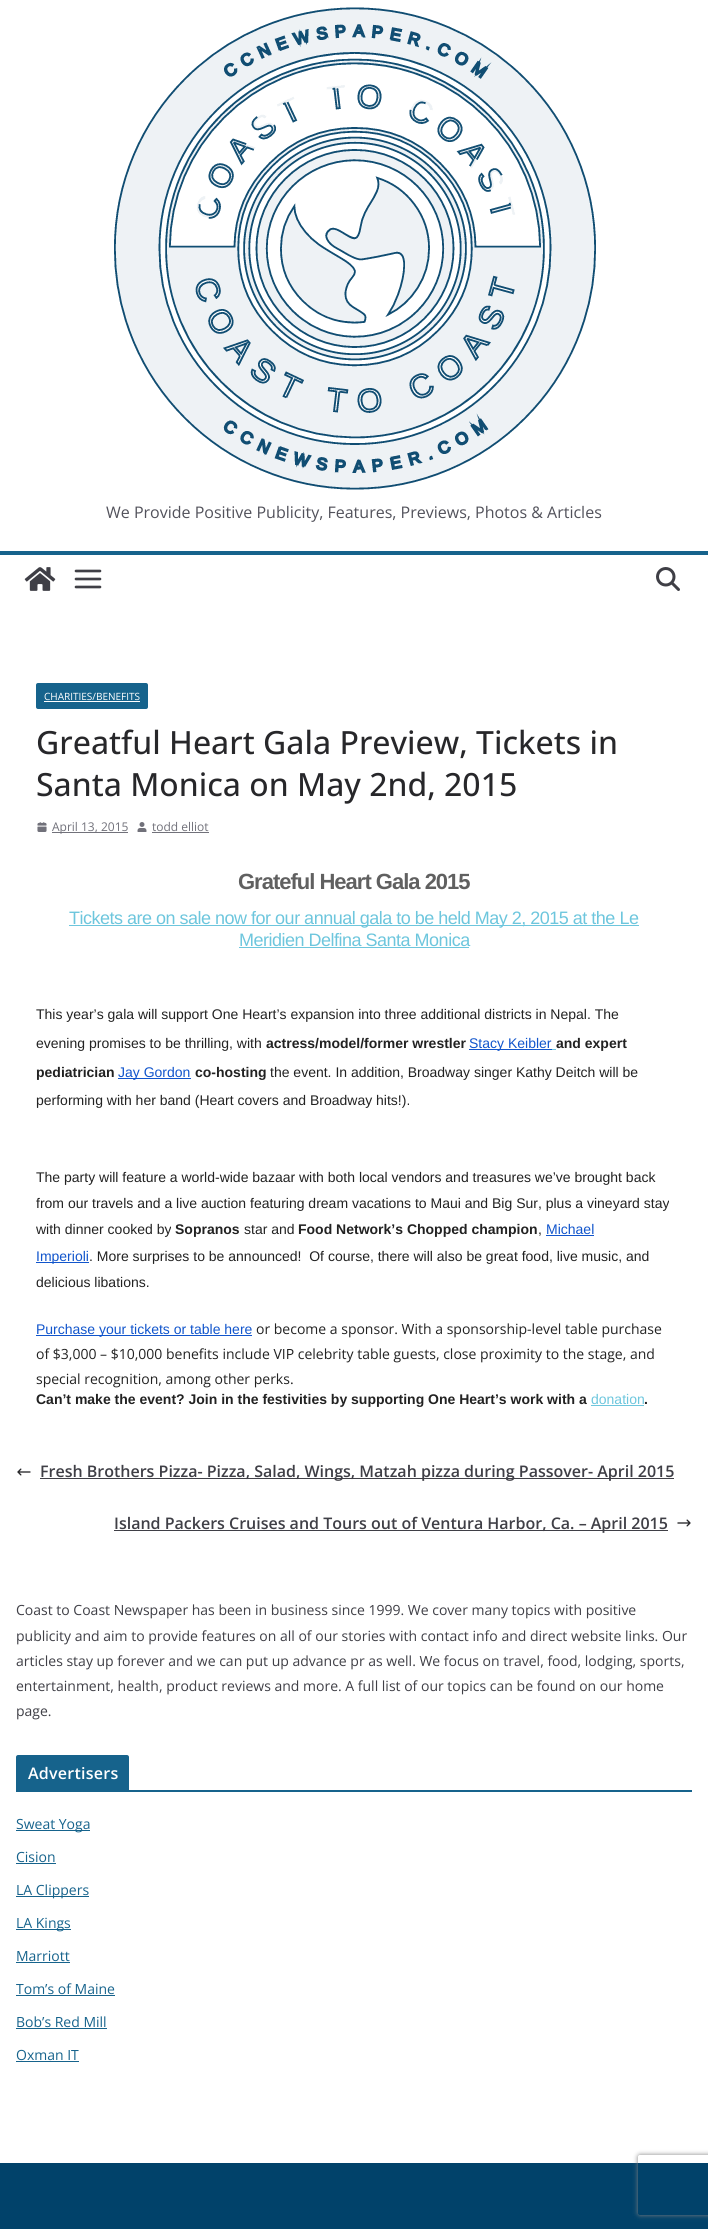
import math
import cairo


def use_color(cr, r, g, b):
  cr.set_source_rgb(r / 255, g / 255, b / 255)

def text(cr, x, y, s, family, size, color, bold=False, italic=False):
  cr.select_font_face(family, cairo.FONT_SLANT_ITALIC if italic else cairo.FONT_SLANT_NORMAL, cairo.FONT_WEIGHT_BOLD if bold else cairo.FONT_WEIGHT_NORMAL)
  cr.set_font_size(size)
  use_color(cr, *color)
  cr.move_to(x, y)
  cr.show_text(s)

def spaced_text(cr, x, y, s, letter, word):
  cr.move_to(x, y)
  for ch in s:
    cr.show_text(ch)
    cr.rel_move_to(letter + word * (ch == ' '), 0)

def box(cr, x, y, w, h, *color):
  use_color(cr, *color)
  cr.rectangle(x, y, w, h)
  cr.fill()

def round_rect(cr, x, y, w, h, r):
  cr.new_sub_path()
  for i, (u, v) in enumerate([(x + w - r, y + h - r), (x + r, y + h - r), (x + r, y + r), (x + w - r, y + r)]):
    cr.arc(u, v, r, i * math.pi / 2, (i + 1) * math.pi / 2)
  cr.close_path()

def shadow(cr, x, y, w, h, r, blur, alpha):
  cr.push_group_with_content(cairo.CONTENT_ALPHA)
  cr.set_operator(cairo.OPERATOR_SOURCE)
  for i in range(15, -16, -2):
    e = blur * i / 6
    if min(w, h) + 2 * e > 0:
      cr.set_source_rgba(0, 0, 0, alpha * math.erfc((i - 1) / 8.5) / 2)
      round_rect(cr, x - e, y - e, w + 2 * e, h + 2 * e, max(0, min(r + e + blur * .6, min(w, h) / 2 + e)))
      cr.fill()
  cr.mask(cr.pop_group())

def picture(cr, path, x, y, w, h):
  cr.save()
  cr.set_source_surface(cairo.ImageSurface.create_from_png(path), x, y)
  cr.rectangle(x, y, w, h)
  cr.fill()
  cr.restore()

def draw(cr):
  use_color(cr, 255, 255, 255)
  cr.paint()
  picture(cr, "img_01.png", 114, 7, 482, 483)
  box(cr, 0, 551, 708, 4, 22, 99, 140)
  picture(cr, "img_02.png", 24, 567, 32, 24)
  picture(cr, "img_03.png", 74, 569, 28, 20)
  picture(cr, "img_04.png", 656, 567, 24, 24)
  round_rect(cr, 36, 683, 112, 26, 2)
  cr.fill()
  box(cr, 44, 701, 96, 1, 255, 255, 255)
  picture(cr, "img_05.png", 37, 822, 10, 10)
  box(cr, 52, 832, 76, 1, 113, 113, 122)
  picture(cr, "img_06.png", 137, 822, 10, 10)
  box(cr, 152, 832, 57, 1, 113, 113, 122)
  box(cr, 69, 925, 570, 1, 109, 198, 221)
  box(cr, 239, 947, 230, 1, 109, 198, 221)
  box(cr, 469, 1049, 83, 1, 17, 85, 204)
  box(cr, 552, 1049, 4, 1, 109, 198, 221)
  box(cr, 118, 1078, 73, 1, 17, 85, 204)
  box(cr, 546, 1235, 48, 1, 17, 85, 204)
  box(cr, 36, 1262, 53, 1, 17, 85, 204)
  box(cr, 36, 1335, 216, 1, 17, 85, 204)
  box(cr, 591, 1405, 53, 1, 109, 198, 221)
  picture(cr, "img_07.png", 17, 1468, 14, 8)
  box(cr, 40, 1478, 634, 1, 63, 63, 70)
  box(cr, 114, 1530, 554, 1, 63, 63, 70)
  picture(cr, "img_08.png", 677, 1519, 14, 8)
  box(cr, 16, 1790, 676, 2, 22, 99, 140)
  cr.new_path()
  cr.move_to(18, 1755)
  cr.line_to(127, 1755)
  cr.curve_to(128, 1755, 129, 1756, 129, 1757)
  cr.line_to(129, 1790)
  cr.line_to(16, 1790)
  cr.line_to(16, 1757)
  cr.curve_to(16, 1756, 17, 1755, 18, 1755)
  cr.close_path()
  cr.fill()
  box(cr, 16, 1830, 74, 1, 22, 99, 140)
  box(cr, 16, 1863, 40, 1, 22, 99, 140)
  box(cr, 16, 1896, 73, 1, 22, 99, 140)
  box(cr, 16, 1929, 55, 1, 22, 99, 140)
  box(cr, 16, 1962, 54, 1, 22, 99, 140)
  box(cr, 16, 1995, 99, 1, 22, 99, 140)
  box(cr, 16, 2028, 91, 1, 22, 99, 140)
  box(cr, 16, 2061, 63, 1, 22, 99, 140)
  box(cr, 0, 2163, 708, 66, 1, 66, 106)
  cr.save()
  cr.set_fill_rule(cairo.FILL_RULE_EVEN_ODD)
  cr.new_path()
  cr.move_to(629, 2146)
  cr.line_to(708, 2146)
  cr.line_to(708, 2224)
  cr.line_to(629, 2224)
  cr.close_path()
  cr.move_to(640, 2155)
  cr.line_to(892, 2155)
  cr.curve_to(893, 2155, 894, 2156, 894, 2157)
  cr.line_to(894, 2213)
  cr.curve_to(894, 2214, 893, 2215, 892, 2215)
  cr.line_to(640, 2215)
  cr.curve_to(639, 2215, 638, 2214, 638, 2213)
  cr.line_to(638, 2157)
  cr.curve_to(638, 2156, 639, 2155, 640, 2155)
  cr.close_path()
  cr.clip()
  use_color(cr, 128, 128, 128)
  shadow(cr, 638, 2155, 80, 60, 2, 2.5, 1)
  cr.restore()
  text(cr, 106, 518, "We Provide Positive Publicity, Features, Previews, Photos & Articles", "Open Sans", 16, (82, 82, 91))
  text(cr, 44, 700, "CHARITIES/BENEFITS", "Open Sans", 10, (255, 255, 255))
  text(cr, 36, 754, "Greatful Heart Gala Preview, Tickets in", "Open Sans Medium", 32, (39, 39, 42))
  text(cr, 36, 796, "Santa Monica on May 2nd, 2015", "Open Sans Medium", 32, (39, 39, 42))
  text(cr, 52, 831, "April 13, 2015", "Open Sans", 12, (113, 113, 122))
  text(cr, 152, 831, "todd elliot", "Open Sans", 12, (113, 113, 122))
  cr.select_font_face("Liberation Sans", cairo.FONT_SLANT_NORMAL, cairo.FONT_WEIGHT_BOLD)
  cr.set_font_size(22)
  use_color(cr, 96, 96, 96)
  spaced_text(cr, 238, 889, "Grateful Heart Gala 2015", -1, 0)
  cr.select_font_face("Liberation Sans")
  cr.set_font_size(18)
  use_color(cr, 109, 198, 221)
  spaced_text(cr, 69, 924, "Tickets are on sale now for our annual gala to be held May 2, 2015 at the Le", -0.5, 0)
  spaced_text(cr, 239, 946, "Meridien Delfina Santa Monica", -0.5, 0)
  text(cr, 36, 1019, "This year’s gala will support One Heart’s expansion into three additional districts in Nepal. The", "Liberation Sans", 14, (34, 34, 34))
  text(cr, 36, 1048, "evening promises to be thrilling, with", "Liberation Sans", 14, (34, 34, 34))
  text(cr, 266, 1048, "actress/model/former wrestler", "Liberation Sans", 14, (34, 34, 34), bold=True)
  text(cr, 469, 1048, "Stacy Keibler", "Liberation Sans", 14, (17, 85, 204))
  text(cr, 556, 1048, "and expert", "Liberation Sans", 14, (34, 34, 34), bold=True)
  text(cr, 36, 1077, "pediatrician", "Liberation Sans", 14, (34, 34, 34), bold=True)
  text(cr, 118, 1077, "Jay Gordon", "Liberation Sans", 14, (17, 85, 204))
  text(cr, 195, 1077, "co-hosting", "Liberation Sans", 14, (34, 34, 34), bold=True)
  text(cr, 270, 1077, "the event. In addition, Broadway singer Kathy Deitch will be", "Liberation Sans", 14, (34, 34, 34))
  text(cr, 36, 1105, "performing with her band (Heart covers and Broadway hits!).", "Liberation Sans", 14, (34, 34, 34))
  text(cr, 36, 1182, "The party will feature a world-wide bazaar with both local vendors and treasures we’ve brought back", "Liberation Sans", 14, (34, 34, 34))
  text(cr, 36, 1208, "from our travels and a live auction featuring dream vacations to Maui and Big Sur, plus a vineyard stay", "Liberation Sans", 14, (34, 34, 34))
  text(cr, 36, 1234, "with dinner cooked by", "Liberation Sans", 14, (34, 34, 34))
  text(cr, 175, 1234, "Sopranos", "Liberation Sans", 14, (34, 34, 34), bold=True)
  text(cr, 244, 1234, "star and", "Liberation Sans", 14, (34, 34, 34))
  text(cr, 298, 1234, "Food Network’s Chopped champion", "Liberation Sans", 14, (34, 34, 34), bold=True)
  text(cr, 538, 1234, ",", "Liberation Sans", 14, (34, 34, 34))
  text(cr, 546, 1234, "Michael", "Liberation Sans", 14, (17, 85, 204))
  text(cr, 36, 1261, "Imperioli", "Liberation Sans", 14, (17, 85, 204))
  text(cr, 89, 1261, ". More surprises to be announced!  Of course, there will also be great food, live music, and", "Liberation Sans", 14, (34, 34, 34))
  text(cr, 36, 1287, "delicious libations.", "Liberation Sans", 14, (34, 34, 34))
  text(cr, 36, 1334, "Purchase your tickets or table here", "Liberation Sans", 14, (17, 85, 204))
  text(cr, 256, 1334, "or become a sponsor. With a sponsorship-level table purchase", "Open Sans", 14, (34, 34, 34))
  text(cr, 36, 1359, "of $3,000 – $10,000 benefits include VIP celebrity table guests, close proximity to the stage, and", "Open Sans", 14, (34, 34, 34))
  text(cr, 36, 1384, "special recognition, among other perks.", "Open Sans", 14, (34, 34, 34))
  text(cr, 36, 1404, "Can’t make the event? Join in the festivities by supporting One Heart’s work with a", "Liberation Sans", 14, (34, 34, 34), bold=True)
  text(cr, 591, 1404, "donation", "Liberation Sans", 14, (109, 198, 221))
  text(cr, 644, 1404, ".", "Liberation Sans", 14, (34, 34, 34), bold=True)
  text(cr, 40, 1477, "Fresh Brothers Pizza- Pizza, Salad, Wings, Matzah pizza during Passover- April 2015", "Open Sans SemiBold", 16, (63, 63, 70))
  text(cr, 114, 1529, "Island Packers Cruises and Tours out of Ventura Harbor, Ca. – April 2015", "Open Sans SemiBold", 16, (63, 63, 70))
  text(cr, 16, 1615, "Coast to Coast Newspaper has been in business since 1999. We cover many topics with positive", "Open Sans", 14, (63, 63, 70))
  text(cr, 16, 1641, "publicity and aim to provide features on all of our stories with contact info and direct website links. Our", "Open Sans", 14, (63, 63, 70))
  text(cr, 16, 1666, "articles stay up forever and we can put up advance pr as well. We focus on travel, food, lodging, sports,", "Open Sans", 14, (63, 63, 70))
  text(cr, 16, 1691, "entertainment, health, product reviews and more. A full list of our topics can be found on our home", "Open Sans", 14, (63, 63, 70))
  text(cr, 16, 1716, "page.", "Open Sans", 14, (63, 63, 70))
  cr.select_font_face("Open Sans SemiBold")
  cr.set_font_size(16)
  use_color(cr, 255, 255, 255)
  spaced_text(cr, 28, 1779, "Advertisers", 0.25, 0)
  text(cr, 16, 1829, "Sweat Yoga", "Open Sans", 14, (22, 99, 140))
  text(cr, 16, 1862, "Cision", "Open Sans", 14, (22, 99, 140))
  text(cr, 16, 1895, "LA Clippers", "Open Sans", 14, (22, 99, 140))
  text(cr, 16, 1928, "LA Kings", "Open Sans", 14, (22, 99, 140))
  text(cr, 16, 1961, "Marriott", "Open Sans", 14, (22, 99, 140))
  text(cr, 16, 1994, "Tom’s of Maine", "Open Sans", 14, (22, 99, 140))
  text(cr, 16, 2027, "Bob’s Red Mill", "Open Sans", 14, (22, 99, 140))
  text(cr, 16, 2060, "Oxman IT", "Open Sans", 14, (22, 99, 140))


surface = cairo.ImageSurface(cairo.FORMAT_RGB24, 708, 2229)
cr = cairo.Context(surface)
options = cairo.FontOptions()
options.set_hint_metrics(cairo.HINT_METRICS_OFF)
options.set_hint_style(cairo.HINT_STYLE_NONE)
cr.set_font_options(options)
cr.set_miter_limit(4)
draw(cr)
surface.write_to_png("out.png")
